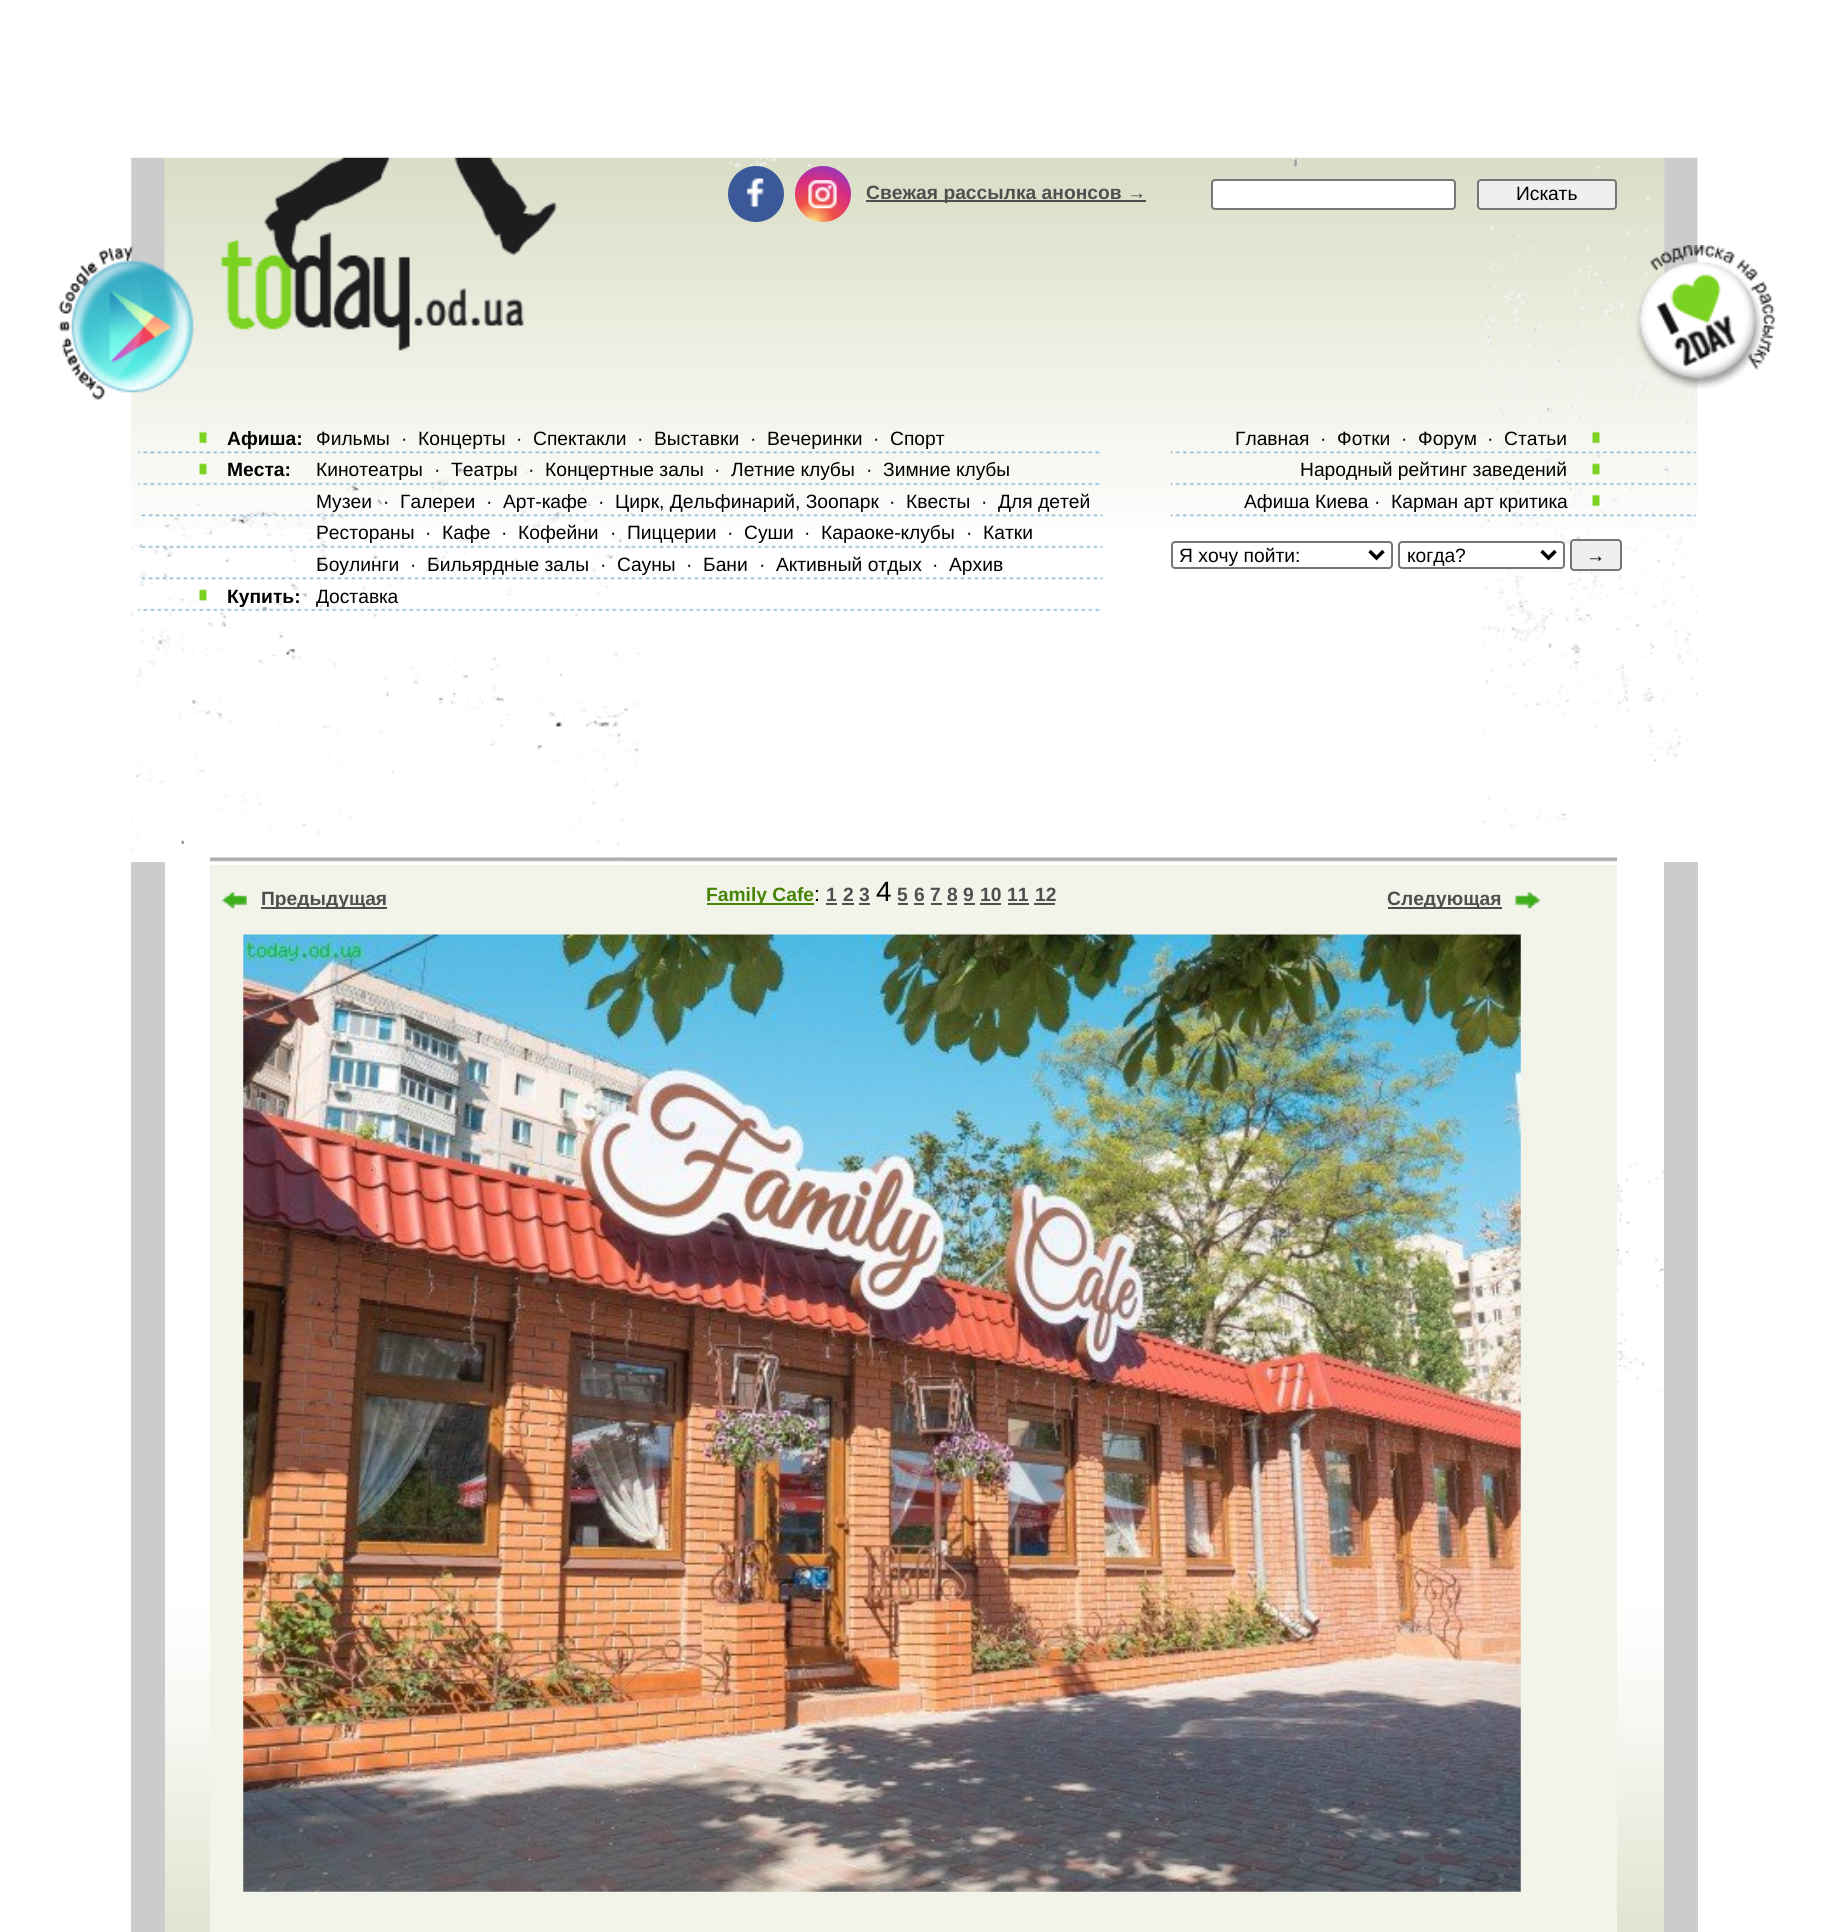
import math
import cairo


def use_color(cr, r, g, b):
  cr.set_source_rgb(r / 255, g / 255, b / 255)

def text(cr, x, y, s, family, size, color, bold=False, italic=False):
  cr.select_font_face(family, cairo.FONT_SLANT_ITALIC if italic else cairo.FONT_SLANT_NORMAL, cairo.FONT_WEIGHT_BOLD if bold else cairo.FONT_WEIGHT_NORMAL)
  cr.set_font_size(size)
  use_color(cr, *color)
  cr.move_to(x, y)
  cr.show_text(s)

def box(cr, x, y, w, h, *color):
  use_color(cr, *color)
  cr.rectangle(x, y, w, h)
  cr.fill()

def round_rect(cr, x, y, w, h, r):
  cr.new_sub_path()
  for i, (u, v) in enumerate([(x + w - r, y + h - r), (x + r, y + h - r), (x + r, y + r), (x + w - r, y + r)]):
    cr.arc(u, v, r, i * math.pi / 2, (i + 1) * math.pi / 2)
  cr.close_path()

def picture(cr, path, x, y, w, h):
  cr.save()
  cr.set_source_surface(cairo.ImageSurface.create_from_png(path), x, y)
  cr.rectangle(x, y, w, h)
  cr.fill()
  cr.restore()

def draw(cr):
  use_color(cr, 255, 255, 255)
  cr.paint()
  picture(cr, "img_14.png", 131, 157, 1567, 372)
  picture(cr, "img_15.png", 131, 157, 1567, 1235)
  picture(cr, "img_01.png", 58, 246, 136, 154)
  use_color(cr, 59, 89, 152)
  cr.arc(756, 194, 28, 0, 2 * math.pi)
  cr.fill()
  picture(cr, "img_02.png", 747, 178, 17, 29)
  gradient = cairo.RadialGradient(813, 222, 0, 813, 222, 67)
  gradient.add_color_stop_rgba(0.04, 0.996, 0.827, 0.451, 1)
  gradient.add_color_stop_rgba(0.3, 0.945, 0.322, 0.271, 1)
  gradient.add_color_stop_rgba(0.62, 0.851, 0.18, 0.498, 1)
  gradient.add_color_stop_rgba(0.85, 0.608, 0.212, 0.718, 1)
  gradient.add_color_stop_rgba(1, 0.318, 0.369, 0.812, 1)
  cr.set_source(gradient)
  cr.arc(823, 194, 28, 0, 2 * math.pi)
  cr.fill()
  picture(cr, "img_03.png", 808, 180, 29, 29)
  box(cr, 866, 200, 280, 2, 79, 79, 79)
  use_color(cr, 255, 255, 255)
  round_rect(cr, 1212, 180, 243, 29, 3)
  cr.fill_preserve()
  use_color(cr, 118, 118, 118)
  cr.stroke()
  use_color(cr, 239, 239, 239)
  round_rect(cr, 1478, 180, 138, 29, 3)
  cr.fill_preserve()
  use_color(cr, 118, 118, 118)
  cr.stroke()
  picture(cr, "img_04.png", 138, 431, 962, 23)
  picture(cr, "img_05.png", 138, 463, 962, 22)
  picture(cr, "img_06.png", 138, 514, 965, 3)
  picture(cr, "img_07.png", 138, 545, 965, 3)
  picture(cr, "img_08.png", 138, 577, 965, 3)
  picture(cr, "img_09.png", 138, 589, 962, 22)
  picture(cr, "img_10.png", 1170, 431, 526, 23)
  picture(cr, "img_11.png", 1170, 463, 526, 22)
  picture(cr, "img_12.png", 1170, 494, 526, 23)
  round_rect(cr, 1172, 542, 220, 26, 3)
  cr.stroke()
  cr.new_path()
  cr.move_to(1369.5, 551)
  cr.line_to(1376.5, 558)
  cr.line_to(1383.5, 551)
  use_color(cr, 0, 0, 0)
  cr.set_line_width(3.5)
  cr.stroke()
  use_color(cr, 255, 255, 255)
  round_rect(cr, 1399, 542, 165, 26, 3)
  cr.fill_preserve()
  use_color(cr, 118, 118, 118)
  cr.set_line_width(2)
  cr.stroke()
  cr.new_path()
  cr.move_to(1541.5, 551)
  cr.line_to(1548.5, 558)
  cr.line_to(1555.5, 551)
  use_color(cr, 0, 0, 0)
  cr.set_line_width(3.5)
  cr.stroke()
  use_color(cr, 239, 239, 239)
  round_rect(cr, 1571, 540, 50, 30, 3)
  cr.fill_preserve()
  use_color(cr, 118, 118, 118)
  cr.set_line_width(2)
  cr.stroke()
  picture(cr, "img_13.png", 1636, 245, 139, 144)
  picture(cr, "img_16.png", 165, 1395, 1499, 537)
  box(cr, 131, 862, 34, 1070, 204, 204, 204)
  picture(cr, "img_17.png", 210, 857, 1407, 7)
  box(cr, 210, 865, 1407, 1067, 242, 244, 234)
  picture(cr, "img_18.png", 222, 892, 25, 17)
  box(cr, 261, 907, 126, 2, 79, 79, 79)
  box(cr, 707, 903, 107, 2, 70, 132, 5)
  box(cr, 826, 903, 11, 2, 79, 79, 79)
  box(cr, 842, 903, 12, 2, 79, 79, 79)
  box(cr, 859, 903, 11, 2, 79, 79, 79)
  box(cr, 898, 903, 10, 2, 79, 79, 79)
  box(cr, 914, 903, 10, 2, 79, 79, 79)
  box(cr, 931, 903, 11, 2, 79, 79, 79)
  box(cr, 947, 903, 10, 2, 79, 79, 79)
  box(cr, 964, 903, 11, 2, 79, 79, 79)
  box(cr, 980, 903, 21, 2, 79, 79, 79)
  box(cr, 1008, 903, 21, 2, 79, 79, 79)
  box(cr, 1034, 903, 21, 2, 79, 79, 79)
  box(cr, 1388, 907, 114, 2, 79, 79, 79)
  picture(cr, "img_19.png", 1515, 892, 25, 17)
  picture(cr, "img_20.png", 243, 934, 1278, 958)
  box(cr, 1664, 862, 34, 1070, 204, 204, 204)
  text(cr, 866, 199, "Свежая рассылка анонсов →", "Liberation Sans", 19.25, (79, 79, 79), bold=True)
  text(cr, 1516, 200, "Искать", "Liberation Sans", 19.25, (0, 0, 0))
  text(cr, 227, 445, "Афиша:", "Liberation Sans", 19.25, (0, 0, 0), bold=True)
  text(cr, 316, 445, "Фильмы", "Liberation Sans", 19.25, (0, 0, 0))
  text(cr, 401, 445, "·", "Liberation Sans", 19.25, (0, 0, 0))
  text(cr, 418, 445, "Концерты", "Liberation Sans", 19.25, (0, 0, 0))
  text(cr, 516, 445, "·", "Liberation Sans", 19.25, (0, 0, 0))
  text(cr, 533, 445, "Спектакли", "Liberation Sans", 19.25, (0, 0, 0))
  text(cr, 637, 445, "·", "Liberation Sans", 19.25, (0, 0, 0))
  text(cr, 654, 445, "Выставки", "Liberation Sans", 19.25, (0, 0, 0))
  text(cr, 750, 445, "·", "Liberation Sans", 19.25, (0, 0, 0))
  text(cr, 767, 445, "Вечеринки", "Liberation Sans", 19.25, (0, 0, 0))
  text(cr, 873, 445, "·", "Liberation Sans", 19.25, (0, 0, 0))
  text(cr, 890, 445, "Спорт", "Liberation Sans", 19.25, (0, 0, 0))
  text(cr, 227, 476, "Места:", "Liberation Sans", 19.25, (0, 0, 0), bold=True)
  text(cr, 316, 476, "Кинотеатры", "Liberation Sans", 19.25, (0, 0, 0))
  text(cr, 434, 476, "·", "Liberation Sans", 19.25, (0, 0, 0))
  text(cr, 451, 476, "Театры", "Liberation Sans", 19.25, (0, 0, 0))
  text(cr, 528, 476, "·", "Liberation Sans", 19.25, (0, 0, 0))
  text(cr, 545, 476, "Концертные залы", "Liberation Sans", 19.25, (0, 0, 0))
  text(cr, 714, 476, "·", "Liberation Sans", 19.25, (0, 0, 0))
  text(cr, 731, 476, "Летние клубы", "Liberation Sans", 19.25, (0, 0, 0))
  text(cr, 866, 476, "·", "Liberation Sans", 19.25, (0, 0, 0))
  text(cr, 883, 476, "Зимние клубы", "Liberation Sans", 19.25, (0, 0, 0))
  text(cr, 316, 508, "Музеи", "Liberation Sans", 19.25, (0, 0, 0))
  text(cr, 383, 508, "·", "Liberation Sans", 19.25, (0, 0, 0))
  text(cr, 400, 508, "Галереи", "Liberation Sans", 19.25, (0, 0, 0))
  text(cr, 486, 508, "·", "Liberation Sans", 19.25, (0, 0, 0))
  text(cr, 503, 508, "Арт-кафе", "Liberation Sans", 19.25, (0, 0, 0))
  text(cr, 598, 508, "·", "Liberation Sans", 19.25, (0, 0, 0))
  text(cr, 615, 508, "Цирк, Дельфинарий, Зоопарк", "Liberation Sans", 19.25, (0, 0, 0))
  text(cr, 889, 508, "·", "Liberation Sans", 19.25, (0, 0, 0))
  text(cr, 906, 508, "Квесты", "Liberation Sans", 19.25, (0, 0, 0))
  text(cr, 981, 508, "·", "Liberation Sans", 19.25, (0, 0, 0))
  text(cr, 998, 508, "Для детей", "Liberation Sans", 19.25, (0, 0, 0))
  text(cr, 316, 539, "Рестораны", "Liberation Sans", 19.25, (0, 0, 0))
  text(cr, 425, 539, "·", "Liberation Sans", 19.25, (0, 0, 0))
  text(cr, 442, 539, "Кафе", "Liberation Sans", 19.25, (0, 0, 0))
  text(cr, 501, 539, "·", "Liberation Sans", 19.25, (0, 0, 0))
  text(cr, 518, 539, "Кофейни", "Liberation Sans", 19.25, (0, 0, 0))
  text(cr, 610, 539, "·", "Liberation Sans", 19.25, (0, 0, 0))
  text(cr, 627, 539, "Пиццерии", "Liberation Sans", 19.25, (0, 0, 0))
  text(cr, 727, 539, "·", "Liberation Sans", 19.25, (0, 0, 0))
  text(cr, 744, 539, "Суши", "Liberation Sans", 19.25, (0, 0, 0))
  text(cr, 804, 539, "·", "Liberation Sans", 19.25, (0, 0, 0))
  text(cr, 821, 539, "Караоке-клубы", "Liberation Sans", 19.25, (0, 0, 0))
  text(cr, 966, 539, "·", "Liberation Sans", 19.25, (0, 0, 0))
  text(cr, 983, 539, "Катки", "Liberation Sans", 19.25, (0, 0, 0))
  text(cr, 316, 571, "Боулинги", "Liberation Sans", 19.25, (0, 0, 0))
  text(cr, 410, 571, "·", "Liberation Sans", 19.25, (0, 0, 0))
  text(cr, 427, 571, "Бильярдные залы", "Liberation Sans", 19.25, (0, 0, 0))
  text(cr, 600, 571, "·", "Liberation Sans", 19.25, (0, 0, 0))
  text(cr, 617, 571, "Сауны", "Liberation Sans", 19.25, (0, 0, 0))
  text(cr, 686, 571, "·", "Liberation Sans", 19.25, (0, 0, 0))
  text(cr, 703, 571, "Бани", "Liberation Sans", 19.25, (0, 0, 0))
  text(cr, 759, 571, "·", "Liberation Sans", 19.25, (0, 0, 0))
  text(cr, 776, 571, "Активный отдых", "Liberation Sans", 19.25, (0, 0, 0))
  text(cr, 932, 571, "·", "Liberation Sans", 19.25, (0, 0, 0))
  text(cr, 949, 571, "Архив", "Liberation Sans", 19.25, (0, 0, 0))
  text(cr, 227, 603, "Купить:", "Liberation Sans", 19.25, (0, 0, 0), bold=True)
  text(cr, 316, 603, "Доставка", "Liberation Sans", 19.25, (0, 0, 0))
  text(cr, 1235, 445, "Главная", "Liberation Sans", 19.25, (0, 0, 0))
  text(cr, 1320, 445, "·", "Liberation Sans", 19.25, (0, 0, 0))
  text(cr, 1337, 445, "Фотки", "Liberation Sans", 19.25, (0, 0, 0))
  text(cr, 1401, 445, "·", "Liberation Sans", 19.25, (0, 0, 0))
  text(cr, 1418, 445, "Форум", "Liberation Sans", 19.25, (0, 0, 0))
  text(cr, 1487, 445, "·", "Liberation Sans", 19.25, (0, 0, 0))
  text(cr, 1504, 445, "Статьи", "Liberation Sans", 19.25, (0, 0, 0))
  text(cr, 1300, 476, "Народный рейтинг заведений", "Liberation Sans", 19.25, (0, 0, 0))
  text(cr, 1244, 508, "Афиша Киева ·", "Liberation Sans", 19.25, (0, 0, 0))
  text(cr, 1391, 508, "Карман арт критика", "Liberation Sans", 19.25, (0, 0, 0))
  text(cr, 1179, 562, "Я хочу пойти:", "Liberation Sans", 19.25, (0, 0, 0))
  text(cr, 1407, 562, "когда?", "Liberation Sans", 19.25, (0, 0, 0))
  text(cr, 1586, 562, "→", "Liberation Sans", 19.25, (0, 0, 0))
  text(cr, 261, 905, "Предыдущая", "Liberation Sans", 19.25, (79, 79, 79), bold=True)
  text(cr, 706, 901, "Family Cafe", "Liberation Sans", 19.25, (70, 132, 5), bold=True)
  text(cr, 814, 901, ":", "Liberation Sans", 21, (0, 0, 0))
  text(cr, 826, 901, "1", "Liberation Sans", 19.25, (79, 79, 79), bold=True)
  text(cr, 843, 901, "2", "Liberation Sans", 19.25, (79, 79, 79), bold=True)
  text(cr, 859, 901, "3", "Liberation Sans", 19.25, (79, 79, 79), bold=True)
  text(cr, 876, 901, "4", "Liberation Sans", 28, (0, 0, 0))
  text(cr, 897, 901, "5", "Liberation Sans", 19.25, (79, 79, 79), bold=True)
  text(cr, 914, 901, "6", "Liberation Sans", 19.25, (79, 79, 79), bold=True)
  text(cr, 930, 901, "7", "Liberation Sans", 19.25, (79, 79, 79), bold=True)
  text(cr, 947, 901, "8", "Liberation Sans", 19.25, (79, 79, 79), bold=True)
  text(cr, 963, 901, "9", "Liberation Sans", 19.25, (79, 79, 79), bold=True)
  text(cr, 980, 901, "10", "Liberation Sans", 19.25, (79, 79, 79), bold=True)
  text(cr, 1007, 901, "11", "Liberation Sans", 19.25, (79, 79, 79), bold=True)
  text(cr, 1035, 901, "12", "Liberation Sans", 19.25, (79, 79, 79), bold=True)
  text(cr, 1387, 905, "Следующая", "Liberation Sans", 19.25, (79, 79, 79), bold=True)


surface = cairo.ImageSurface(cairo.FORMAT_RGB24, 1827, 1932)
cr = cairo.Context(surface)
options = cairo.FontOptions()
options.set_hint_metrics(cairo.HINT_METRICS_OFF)
options.set_hint_style(cairo.HINT_STYLE_NONE)
cr.set_font_options(options)
cr.set_miter_limit(4)
draw(cr)
surface.write_to_png("out.png")
